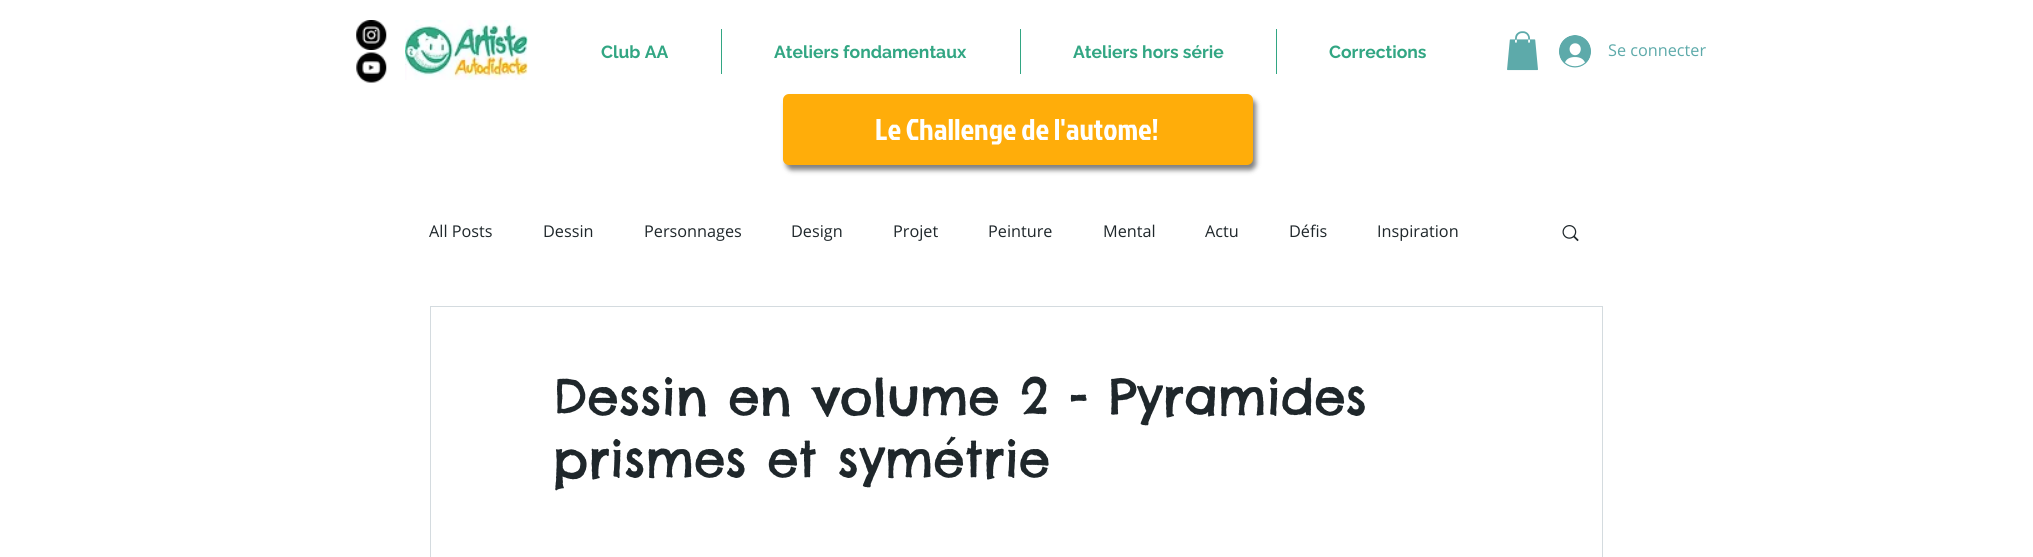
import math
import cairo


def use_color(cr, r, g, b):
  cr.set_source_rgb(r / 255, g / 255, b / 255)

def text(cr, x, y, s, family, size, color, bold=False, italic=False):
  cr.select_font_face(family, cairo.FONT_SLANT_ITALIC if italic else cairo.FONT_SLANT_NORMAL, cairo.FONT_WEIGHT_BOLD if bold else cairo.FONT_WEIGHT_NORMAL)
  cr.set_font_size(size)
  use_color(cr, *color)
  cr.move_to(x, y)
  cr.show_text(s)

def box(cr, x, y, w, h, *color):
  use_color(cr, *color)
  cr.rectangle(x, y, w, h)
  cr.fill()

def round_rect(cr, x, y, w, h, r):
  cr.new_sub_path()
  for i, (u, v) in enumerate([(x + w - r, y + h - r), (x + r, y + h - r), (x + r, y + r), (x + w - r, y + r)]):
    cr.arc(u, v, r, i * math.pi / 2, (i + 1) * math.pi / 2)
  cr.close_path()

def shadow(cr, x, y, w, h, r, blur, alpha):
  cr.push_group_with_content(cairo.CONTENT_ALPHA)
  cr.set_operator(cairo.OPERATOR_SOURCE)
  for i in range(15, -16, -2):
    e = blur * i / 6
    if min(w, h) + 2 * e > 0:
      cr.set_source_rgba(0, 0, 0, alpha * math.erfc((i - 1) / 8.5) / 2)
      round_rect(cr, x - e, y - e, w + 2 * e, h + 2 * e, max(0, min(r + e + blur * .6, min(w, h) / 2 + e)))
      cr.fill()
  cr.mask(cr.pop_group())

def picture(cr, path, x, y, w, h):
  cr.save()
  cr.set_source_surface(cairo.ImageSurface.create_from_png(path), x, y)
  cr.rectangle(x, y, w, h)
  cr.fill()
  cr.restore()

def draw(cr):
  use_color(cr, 255, 255, 255)
  cr.paint()
  picture(cr, "img_01.png", 356, 20, 31, 30)
  picture(cr, "img_02.png", 356, 52, 31, 31)
  picture(cr, "img_03.png", 405, 20, 123, 60)
  box(cr, 721, 29, 1, 45, 50, 166, 131)
  box(cr, 1020, 29, 1, 45, 50, 166, 131)
  box(cr, 1276, 29, 1, 45, 50, 166, 131)
  picture(cr, "img_04.png", 1507, 31, 31, 40)
  picture(cr, "img_05.png", 1559, 35, 32, 33)
  use_color(cr, 0, 0, 0)
  shadow(cr, 786, 99, 470, 71, 6, 2.5, 0.5)
  use_color(cr, 255, 173, 10)
  round_rect(cr, 783, 94, 470, 71, 6)
  cr.fill()
  picture(cr, "img_06.png", 1562, 225, 17, 17)
  cr.rectangle(430.5, 306.5, 1172, 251)
  use_color(cr, 212, 219, 223)
  cr.set_line_width(1)
  cr.stroke()
  text(cr, 601, 58, "Club AA", "Raleway", 17.5, (50, 166, 131), bold=True)
  text(cr, 774, 58, "Ateliers fondamentaux", "Raleway", 17.5, (50, 166, 131), bold=True)
  text(cr, 1073, 58, "Ateliers hors série", "Raleway", 17.5, (50, 166, 131), bold=True)
  text(cr, 1329, 58, "Corrections", "Raleway", 17.5, (50, 166, 131), bold=True)
  text(cr, 1608, 56, "Se connecter", "Open Sans", 16.25, (93, 170, 170))
  text(cr, 875, 140, "Le Challenge de l'autome!", "Jockey One", 30, (255, 255, 255))
  text(cr, 429, 237, "All Posts", "Open Sans", 16.25, (31, 39, 43))
  text(cr, 543, 237, "Dessin", "Open Sans", 16.25, (31, 39, 43))
  text(cr, 644, 237, "Personnages", "Open Sans", 16.25, (31, 39, 43))
  text(cr, 791, 237, "Design", "Open Sans", 16.25, (31, 39, 43))
  text(cr, 893, 237, "Projet", "Open Sans", 16.25, (31, 39, 43))
  text(cr, 988, 237, "Peinture", "Open Sans", 16.25, (31, 39, 43))
  text(cr, 1103, 237, "Mental", "Open Sans", 16.25, (31, 39, 43))
  text(cr, 1205, 237, "Actu", "Open Sans", 16.25, (31, 39, 43))
  text(cr, 1289, 237, "Défis", "Open Sans", 16.25, (31, 39, 43))
  text(cr, 1377, 237, "Inspiration", "Open Sans", 16.25, (31, 39, 43))
  text(cr, 553, 415, "Dessin en volume 2 - Pyramides", "Chelsea Market", 50, (31, 39, 43))
  text(cr, 553, 477, "prismes et symétrie", "Chelsea Market", 50, (31, 39, 43))


surface = cairo.ImageSurface(cairo.FORMAT_RGB24, 2033, 557)
cr = cairo.Context(surface)
options = cairo.FontOptions()
options.set_hint_metrics(cairo.HINT_METRICS_OFF)
options.set_hint_style(cairo.HINT_STYLE_NONE)
cr.set_font_options(options)
cr.set_miter_limit(4)
draw(cr)
surface.write_to_png("out.png")
